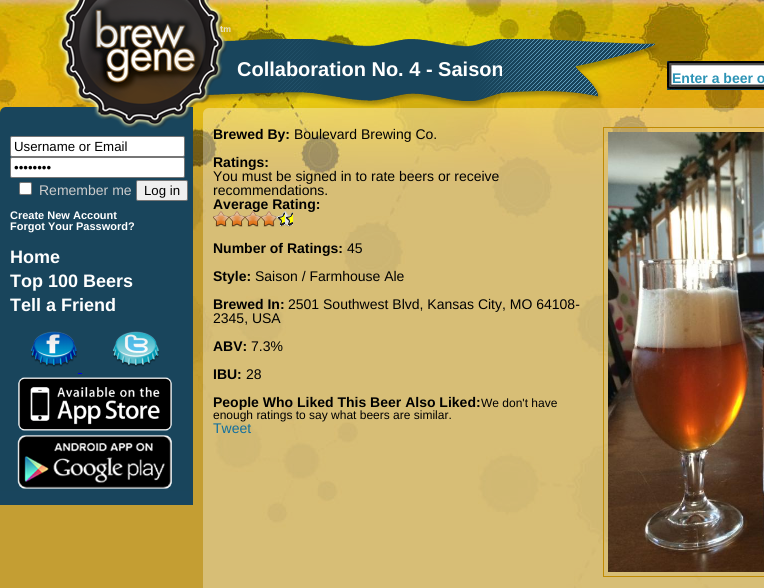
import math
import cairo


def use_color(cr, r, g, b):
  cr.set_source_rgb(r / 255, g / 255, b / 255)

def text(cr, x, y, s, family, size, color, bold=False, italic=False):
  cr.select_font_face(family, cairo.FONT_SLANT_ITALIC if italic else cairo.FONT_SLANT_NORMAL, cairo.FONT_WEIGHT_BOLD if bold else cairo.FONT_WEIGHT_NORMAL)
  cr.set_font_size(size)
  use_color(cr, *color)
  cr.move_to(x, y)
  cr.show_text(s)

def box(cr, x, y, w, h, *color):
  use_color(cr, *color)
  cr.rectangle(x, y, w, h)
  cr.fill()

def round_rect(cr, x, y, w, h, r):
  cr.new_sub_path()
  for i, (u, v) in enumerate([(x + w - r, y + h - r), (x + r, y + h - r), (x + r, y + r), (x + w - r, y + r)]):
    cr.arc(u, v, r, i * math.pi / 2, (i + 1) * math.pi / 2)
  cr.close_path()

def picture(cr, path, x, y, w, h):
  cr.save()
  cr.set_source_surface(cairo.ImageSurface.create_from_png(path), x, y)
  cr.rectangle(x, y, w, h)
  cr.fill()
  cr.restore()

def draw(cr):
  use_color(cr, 255, 255, 255)
  cr.paint()
  picture(cr, "img_01.png", 0, 0, 764, 588)
  picture(cr, "img_02.png", 58, 0, 601, 107)
  picture(cr, "img_03.png", 667, 61, 97, 29)
  picture(cr, "img_04.png", 0, 107, 193, 384)
  use_color(cr, 255, 255, 255)
  round_rect(cr, 10.5, 136.5, 174, 20, 1.5)
  cr.fill_preserve()
  use_color(cr, 118, 118, 118)
  cr.set_line_width(1)
  cr.stroke()
  use_color(cr, 255, 255, 255)
  round_rect(cr, 10.5, 157.5, 174, 20, 1.5)
  cr.fill_preserve()
  use_color(cr, 118, 118, 118)
  cr.stroke()
  use_color(cr, 255, 255, 255)
  round_rect(cr, 19.5, 182.5, 12, 12, 1.5)
  cr.fill_preserve()
  use_color(cr, 118, 118, 118)
  cr.stroke()
  use_color(cr, 239, 239, 239)
  round_rect(cr, 136.5, 180.5, 51, 20, 1.5)
  cr.fill_preserve()
  use_color(cr, 118, 118, 118)
  cr.stroke()
  picture(cr, "img_05.png", 31, 331, 46, 36)
  picture(cr, "img_06.png", 112, 331, 47, 36)
  box(cr, 78, 373, 4, 1, 0, 0, 238)
  picture(cr, "img_07.png", 18, 377, 154, 54)
  picture(cr, "img_08.png", 17, 435, 155, 54)
  box(cr, 0, 491, 193, 14, 25, 69, 93)
  picture(cr, "img_09.png", 203, 108, 561, 9)
  cr.set_source_rgba(1, 1, 1, 0.33)
  cr.rectangle(203, 117, 561, 471)
  cr.fill()
  cr.rectangle(603.5, 127.5, 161, 449)
  use_color(cr, 192, 138, 2)
  cr.stroke()
  picture(cr, "img_20.png", 608, 132, 156, 440)
  text(cr, 237, 76, "Collaboration No. 4 - Saison", "Liberation Sans", 20, (255, 255, 255), bold=True)
  text(cr, 672, 83, "Enter a beer o", "Liberation Sans", 14, (44, 147, 181), bold=True)
  text(cr, 14, 151, "Username or Email", "Liberation Sans", 13.25, (0, 0, 0))
  text(cr, 14, 172, "••••••••", "Liberation Sans", 13.25, (0, 0, 0))
  text(cr, 39, 195, "Remember me", "Liberation Sans", 14, (204, 204, 204))
  text(cr, 144, 195, "Log in", "Liberation Sans", 13.25, (0, 0, 0))
  text(cr, 10, 219, "Create New Account", "Liberation Sans", 11, (255, 255, 255), bold=True)
  text(cr, 10, 230, "Forgot Your Password?", "Liberation Sans", 11, (255, 255, 255), bold=True)
  text(cr, 10, 263, "Home", "Liberation Sans", 18, (255, 255, 255), bold=True)
  text(cr, 10, 287, "Top 100 Beers", "Liberation Sans", 18, (255, 255, 255), bold=True)
  text(cr, 10, 311, "Tell a Friend", "Liberation Sans", 18, (255, 255, 255), bold=True)
  text(cr, 213, 139, "Brewed By:", "Liberation Sans", 14, (0, 0, 0), bold=True)
  text(cr, 294, 139, "Boulevard Brewing Co.", "Liberation Sans", 14, (0, 0, 0))
  text(cr, 213, 167, "Ratings:", "Liberation Sans", 14, (0, 0, 0), bold=True)
  text(cr, 213, 181, "You must be signed in to rate beers or receive", "Liberation Sans", 14, (0, 0, 0))
  text(cr, 213, 195, "recommendations.", "Liberation Sans", 14, (0, 0, 0))
  text(cr, 213, 209, "Average Rating:", "Liberation Sans", 14, (0, 0, 0), bold=True)
  picture(cr, "img_10.png", 213, 211, 8, 16)
  picture(cr, "img_11.png", 213, 211, 8, 16)
  picture(cr, "img_12.png", 221, 211, 8, 16)
  picture(cr, "img_13.png", 221, 211, 8, 16)
  picture(cr, "img_10.png", 229, 211, 8, 16)
  picture(cr, "img_11.png", 229, 211, 8, 16)
  picture(cr, "img_12.png", 237, 211, 8, 16)
  picture(cr, "img_13.png", 237, 211, 8, 16)
  picture(cr, "img_10.png", 245, 211, 8, 16)
  picture(cr, "img_11.png", 245, 211, 8, 16)
  picture(cr, "img_14.png", 253, 211, 8, 16)
  picture(cr, "img_15.png", 253, 211, 8, 16)
  picture(cr, "img_10.png", 261, 211, 8, 16)
  picture(cr, "img_11.png", 261, 211, 8, 16)
  picture(cr, "img_12.png", 269, 211, 8, 16)
  picture(cr, "img_16.png", 269, 211, 7, 16)
  picture(cr, "img_10.png", 277, 211, 8, 16)
  picture(cr, "img_17.png", 277, 212, 8, 14)
  picture(cr, "img_18.png", 285, 211, 5, 16)
  picture(cr, "img_19.png", 286, 212, 7, 14)
  text(cr, 213, 253, "Number of Ratings:", "Liberation Sans", 14, (0, 0, 0), bold=True)
  text(cr, 347, 253, "45", "Liberation Sans", 14, (0, 0, 0))
  text(cr, 213, 281, "Style:", "Liberation Sans", 14, (0, 0, 0), bold=True)
  text(cr, 255, 281, "Saison / Farmhouse Ale", "Liberation Sans", 14, (0, 0, 0))
  text(cr, 213, 309, "Brewed In:", "Liberation Sans", 14, (0, 0, 0), bold=True)
  text(cr, 288, 309, "2501 Southwest Blvd, Kansas City, MO 64108-", "Liberation Sans", 14, (0, 0, 0))
  text(cr, 213, 323, "2345, USA", "Liberation Sans", 14, (0, 0, 0))
  text(cr, 213, 351, "ABV:", "Liberation Sans", 14, (0, 0, 0), bold=True)
  text(cr, 251, 351, "7.3%", "Liberation Sans", 14, (0, 0, 0))
  text(cr, 213, 379, "IBU:", "Liberation Sans", 14, (0, 0, 0), bold=True)
  text(cr, 246, 379, "28", "Liberation Sans", 14, (0, 0, 0))
  text(cr, 213, 407, "People Who Liked This Beer Also Liked:", "Liberation Sans", 14, (0, 0, 0), bold=True)
  text(cr, 481, 407, "We don't have", "Liberation Sans", 12, (0, 0, 0))
  text(cr, 213, 419, "enough ratings to say what beers are similar.", "Liberation Sans", 12, (0, 0, 0))
  text(cr, 213, 433, "Tweet", "Liberation Sans", 14, (18, 111, 157))


surface = cairo.ImageSurface(cairo.FORMAT_RGB24, 764, 588)
cr = cairo.Context(surface)
options = cairo.FontOptions()
options.set_hint_metrics(cairo.HINT_METRICS_OFF)
options.set_hint_style(cairo.HINT_STYLE_NONE)
cr.set_font_options(options)
cr.set_miter_limit(4)
draw(cr)
surface.write_to_png("out.png")
